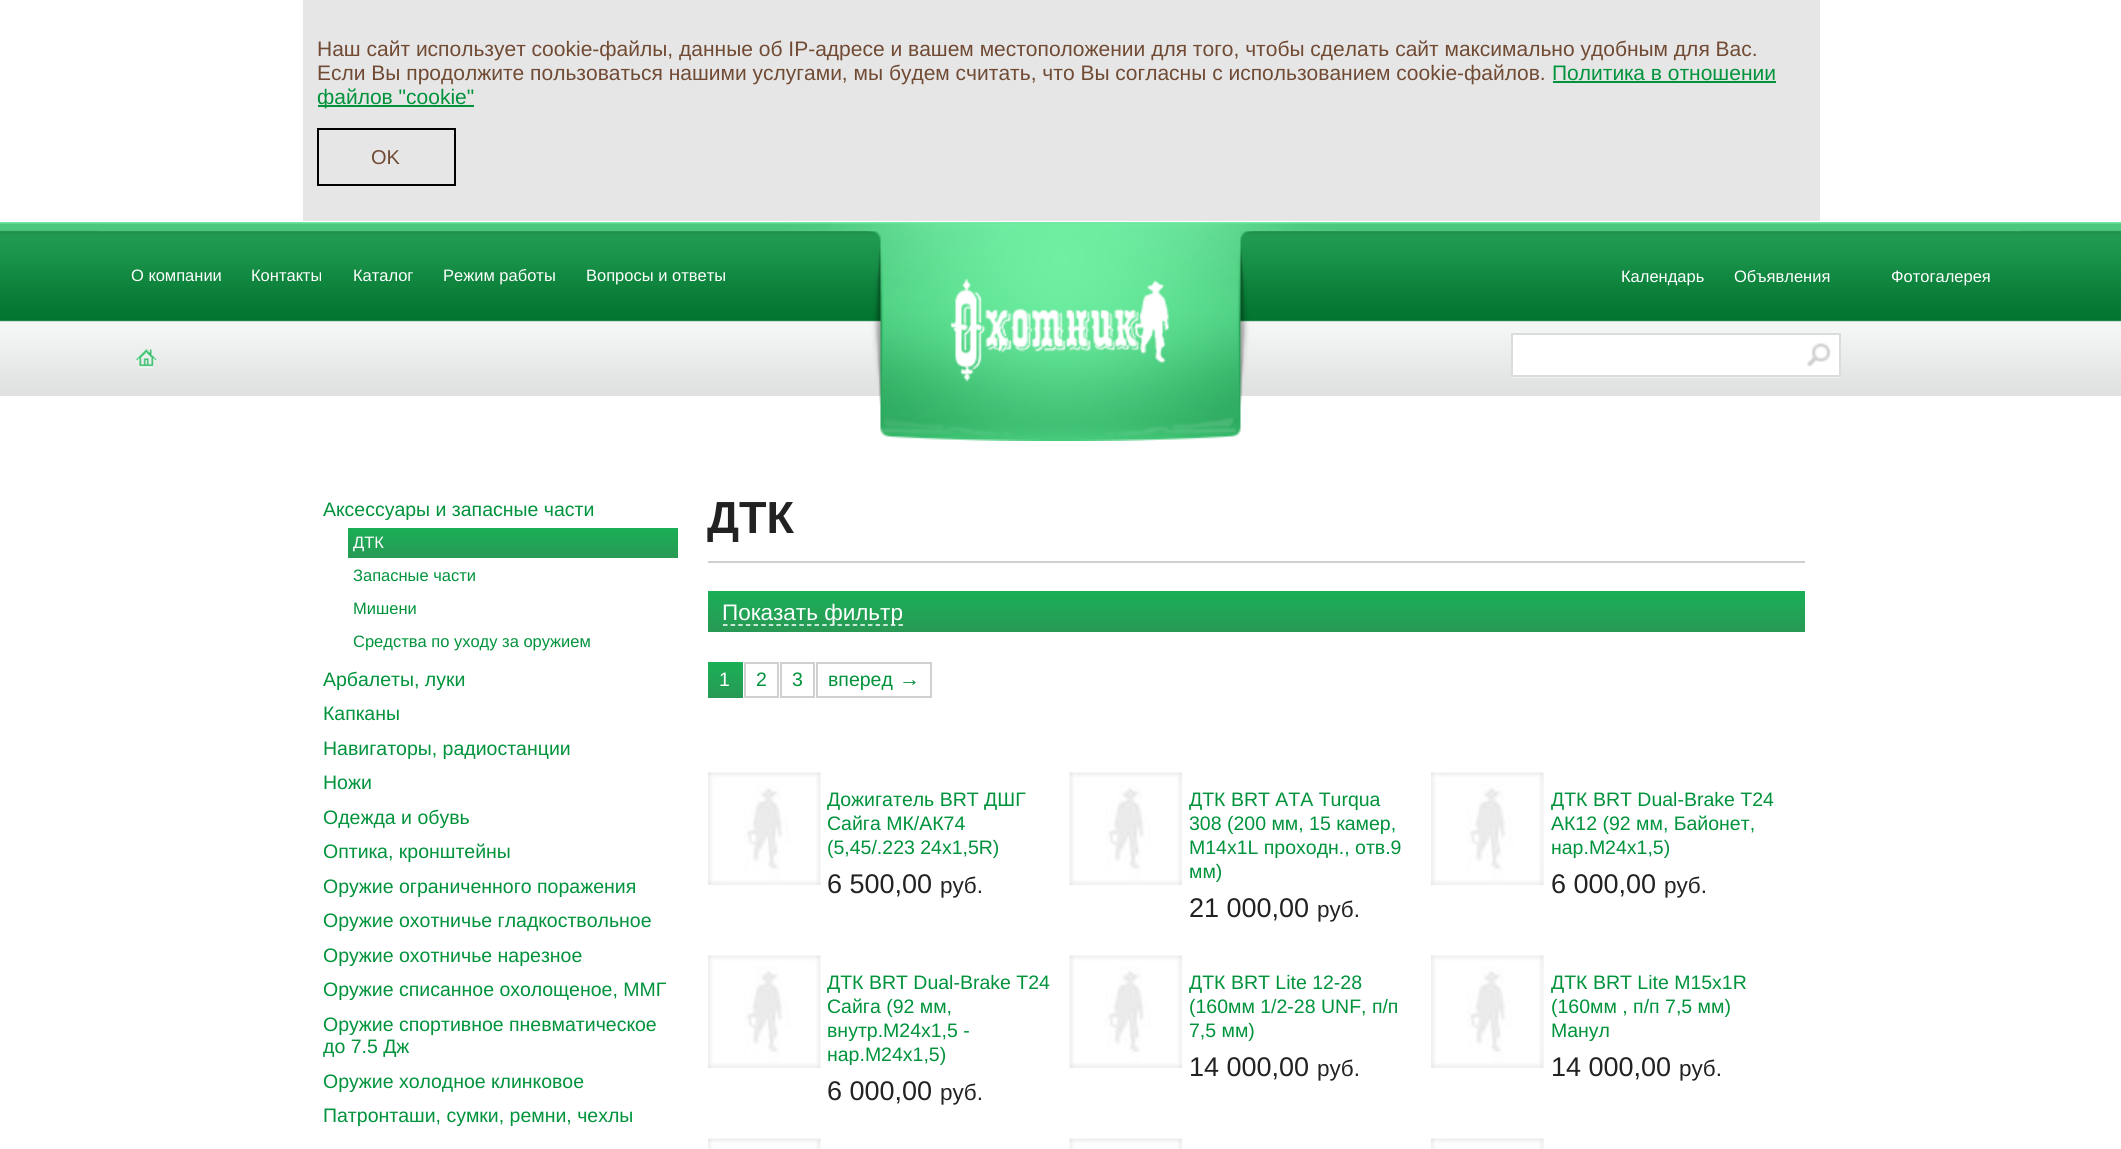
import math
import cairo


def use_color(cr, r, g, b):
  cr.set_source_rgb(r / 255, g / 255, b / 255)

def text(cr, x, y, s, family, size, color, bold=False, italic=False):
  cr.select_font_face(family, cairo.FONT_SLANT_ITALIC if italic else cairo.FONT_SLANT_NORMAL, cairo.FONT_WEIGHT_BOLD if bold else cairo.FONT_WEIGHT_NORMAL)
  cr.set_font_size(size)
  use_color(cr, *color)
  cr.move_to(x, y)
  cr.show_text(s)

def box(cr, x, y, w, h, *color):
  use_color(cr, *color)
  cr.rectangle(x, y, w, h)
  cr.fill()

def picture(cr, path, x, y, w, h):
  cr.save()
  cr.set_source_surface(cairo.ImageSurface.create_from_png(path), x, y)
  cr.rectangle(x, y, w, h)
  cr.fill()
  cr.restore()

def draw(cr):
  use_color(cr, 255, 255, 255)
  cr.paint()
  box(cr, 303, 0, 1517, 221, 230, 230, 230)
  box(cr, 1553, 81, 223, 2, 0, 147, 59)
  box(cr, 318, 105, 156, 2, 0, 147, 59)
  cr.rectangle(318, 129, 137, 56)
  use_color(cr, 0, 0, 0)
  cr.stroke()
  picture(cr, "img_01.png", 0, 222, 2121, 174)
  picture(cr, "img_02.png", 101, 223, 1919, 8)
  picture(cr, "img_03.png", 136, 349, 21, 19)
  picture(cr, "img_04.png", 868, 231, 385, 210)
  use_color(cr, 237, 241, 238)
  cr.new_path()
  cr.move_to(1511, 376)
  cr.line_to(1511, 378)
  cr.line_to(1841, 378)
  cr.line_to(1841, 335)
  cr.line_to(1840, 335)
  cr.line_to(1840, 376)
  cr.close_path()
  cr.fill()
  box(cr, 1513, 335, 326, 40, 255, 255, 255)
  picture(cr, "img_05.png", 1807, 343, 24, 24)
  cr.rectangle(1512, 334, 328, 42)
  use_color(cr, 220, 220, 220)
  cr.stroke()
  gradient = cairo.LinearGradient(513, 528, 513, 558)
  gradient.add_color_stop_rgba(0, 0.102, 0.686, 0.337, 1)
  gradient.add_color_stop_rgba(1, 0.157, 0.6, 0.333, 1)
  cr.set_source(gradient)
  cr.rectangle(348, 528, 330, 30)
  cr.fill()
  box(cr, 708, 561, 1097, 2, 208, 208, 208)
  gradient = cairo.LinearGradient(1256, 591, 1256, 632)
  gradient.add_color_stop_rgba(0, 0.102, 0.686, 0.337, 1)
  gradient.add_color_stop_rgba(1, 0.157, 0.6, 0.333, 1)
  cr.set_source(gradient)
  cr.rectangle(708, 591, 1097, 41)
  cr.fill()
  cr.new_path()
  cr.move_to(723, 625)
  cr.line_to(903, 625)
  use_color(cr, 255, 255, 255)
  cr.set_line_width(1.5)
  cr.set_dash([4.5, 3.13])
  cr.stroke()
  gradient = cairo.LinearGradient(725, 662, 725, 698)
  gradient.add_color_stop_rgba(0, 0.102, 0.69, 0.337, 1)
  gradient.add_color_stop_rgba(1, 0.157, 0.6, 0.333, 1)
  cr.set_source(gradient)
  cr.rectangle(708, 662, 35, 36)
  cr.fill()
  cr.rectangle(745, 663, 33, 34)
  use_color(cr, 208, 208, 208)
  cr.set_line_width(2)
  cr.set_dash([])
  cr.stroke()
  cr.rectangle(781, 663, 33, 34)
  cr.stroke()
  cr.rectangle(817, 663, 114, 34)
  cr.stroke()
  picture(cr, "img_06.png", 708, 772, 113, 113)
  picture(cr, "img_07.png", 1069, 772, 113, 113)
  picture(cr, "img_08.png", 1431, 772, 113, 113)
  picture(cr, "img_06.png", 708, 955, 113, 113)
  picture(cr, "img_07.png", 1069, 955, 113, 113)
  picture(cr, "img_08.png", 1431, 955, 113, 113)
  picture(cr, "img_09.png", 708, 1138, 113, 11)
  picture(cr, "img_10.png", 1069, 1138, 113, 11)
  picture(cr, "img_11.png", 1431, 1138, 113, 11)
  text(cr, 317, 56, "Наш сайт использует cookie-файлы, данные об IP-адресе и вашем местоположении для того, чтобы сделать сайт максимально удобным для Вас.", "Liberation Sans", 21, (112, 74, 51))
  text(cr, 317, 80, "Если Вы продолжите пользоваться нашими услугами, мы будем считать, что Вы согласны с использованием cookie-файлов.", "Liberation Sans", 21, (112, 74, 51))
  text(cr, 1552, 80, "Политика в отношении", "Liberation Sans", 21, (0, 147, 59))
  text(cr, 317, 104, "файлов \"cookie\"", "Liberation Sans", 21, (0, 147, 59))
  text(cr, 371, 164, "OK", "Liberation Sans", 20, (112, 74, 51))
  text(cr, 131, 281, "О компании", "Liberation Sans", 16.5, (255, 255, 255))
  text(cr, 251, 281, "Контакты", "Liberation Sans", 16.5, (255, 255, 255))
  text(cr, 353, 281, "Каталог", "Liberation Sans", 16.5, (255, 255, 255))
  text(cr, 443, 281, "Режим работы", "Liberation Sans", 16.5, (255, 255, 255))
  text(cr, 586, 281, "Вопросы и ответы", "Liberation Sans", 16.5, (255, 255, 255))
  text(cr, 1621, 282, "Календарь", "Liberation Sans", 16.5, (255, 255, 255))
  text(cr, 1734, 282, "Объявления", "Liberation Sans", 16.5, (255, 255, 255))
  text(cr, 1891, 282, "Фотогалерея", "Liberation Sans", 16.5, (255, 255, 255))
  text(cr, 323, 516, "Аксессуары и запасные части", "Liberation Sans", 19.5, (0, 147, 59))
  text(cr, 353, 548, "ДТК", "Liberation Sans", 16.5, (255, 255, 255))
  text(cr, 353, 581, "Запасные части", "Liberation Sans", 16.5, (0, 147, 59))
  text(cr, 353, 614, "Мишени", "Liberation Sans", 16.5, (0, 147, 59))
  text(cr, 353, 647, "Средства по уходу за оружием", "Liberation Sans", 16.5, (0, 147, 59))
  text(cr, 323, 686, "Арбалеты, луки", "Liberation Sans", 19.5, (0, 147, 59))
  text(cr, 323, 720, "Капканы", "Liberation Sans", 19.5, (0, 147, 59))
  text(cr, 323, 755, "Навигаторы, радиостанции", "Liberation Sans", 19.5, (0, 147, 59))
  text(cr, 323, 789, "Ножи", "Liberation Sans", 19.5, (0, 147, 59))
  text(cr, 323, 824, "Одежда и обувь", "Liberation Sans", 19.5, (0, 147, 59))
  text(cr, 323, 858, "Оптика, кронштейны", "Liberation Sans", 19.5, (0, 147, 59))
  text(cr, 323, 893, "Оружие ограниченного поражения", "Liberation Sans", 19.5, (0, 147, 59))
  text(cr, 323, 927, "Оружие охотничье гладкоствольное", "Liberation Sans", 19.5, (0, 147, 59))
  text(cr, 323, 962, "Оружие охотничье нарезное", "Liberation Sans", 19.5, (0, 147, 59))
  text(cr, 323, 996, "Оружие списанное охолощеное, ММГ", "Liberation Sans", 19.5, (0, 147, 59))
  text(cr, 323, 1031, "Оружие спортивное пневматическое", "Liberation Sans", 19.5, (0, 147, 59))
  text(cr, 323, 1053, "до 7.5 Дж", "Liberation Sans", 19.5, (0, 147, 59))
  text(cr, 323, 1088, "Оружие холодное клинковое", "Liberation Sans", 19.5, (0, 147, 59))
  text(cr, 323, 1122, "Патронташи, сумки, ремни, чехлы", "Liberation Sans", 19.5, (0, 147, 59))
  text(cr, 707, 533, "ДТК", "Liberation Sans", 45, (34, 34, 34), bold=True)
  text(cr, 722, 620, "Показать фильтр", "Liberation Sans", 22.5, (255, 255, 255))
  text(cr, 719, 686, "1", "Liberation Sans", 19.5, (255, 255, 255))
  text(cr, 756, 686, "2", "Liberation Sans", 19.5, (0, 147, 59))
  text(cr, 792, 686, "3", "Liberation Sans", 19.5, (0, 147, 59))
  text(cr, 828, 686, "вперед", "Liberation Sans", 19.5, (0, 147, 59))
  text(cr, 899, 686, "→", "Liberation Sans", 21, (0, 147, 59))
  text(cr, 827, 806, "Дожигатель BRT ДШГ", "Liberation Sans", 19.5, (0, 147, 59))
  text(cr, 827, 830, "Сайга МК/АК74", "Liberation Sans", 19.5, (0, 147, 59))
  text(cr, 827, 854, "(5,45/.223 24х1,5R)", "Liberation Sans", 19.5, (0, 147, 59))
  text(cr, 827, 893, "6 500,00", "Liberation Sans", 27, (34, 34, 34))
  text(cr, 940, 893, "руб.", "Liberation Sans", 22.5, (34, 34, 34))
  text(cr, 1189, 806, "ДТК BRT ATA Turqua", "Liberation Sans", 19.5, (0, 147, 59))
  text(cr, 1189, 830, "308 (200 мм, 15 камер,", "Liberation Sans", 19.5, (0, 147, 59))
  text(cr, 1189, 854, "М14х1L проходн., отв.9", "Liberation Sans", 19.5, (0, 147, 59))
  text(cr, 1189, 878, "мм)", "Liberation Sans", 19.5, (0, 147, 59))
  text(cr, 1189, 917, "21 000,00", "Liberation Sans", 27, (34, 34, 34))
  text(cr, 1317, 917, "руб.", "Liberation Sans", 22.5, (34, 34, 34))
  text(cr, 1551, 806, "ДТК BRT Dual-Brake Т24", "Liberation Sans", 19.5, (0, 147, 59))
  text(cr, 1551, 830, "АК12 (92 мм, Байонет,", "Liberation Sans", 19.5, (0, 147, 59))
  text(cr, 1551, 854, "нар.М24х1,5)", "Liberation Sans", 19.5, (0, 147, 59))
  text(cr, 1551, 893, "6 000,00", "Liberation Sans", 27, (34, 34, 34))
  text(cr, 1664, 893, "руб.", "Liberation Sans", 22.5, (34, 34, 34))
  text(cr, 827, 989, "ДТК BRT Dual-Brake Т24", "Liberation Sans", 19.5, (0, 147, 59))
  text(cr, 827, 1013, "Сайга (92 мм,", "Liberation Sans", 19.5, (0, 147, 59))
  text(cr, 827, 1037, "внутр.М24х1,5 -", "Liberation Sans", 19.5, (0, 147, 59))
  text(cr, 827, 1061, "нар.М24х1,5)", "Liberation Sans", 19.5, (0, 147, 59))
  text(cr, 827, 1100, "6 000,00", "Liberation Sans", 27, (34, 34, 34))
  text(cr, 940, 1100, "руб.", "Liberation Sans", 22.5, (34, 34, 34))
  text(cr, 1189, 989, "ДТК BRT Lite 12-28", "Liberation Sans", 19.5, (0, 147, 59))
  text(cr, 1189, 1013, "(160мм 1/2-28 UNF, п/п", "Liberation Sans", 19.5, (0, 147, 59))
  text(cr, 1189, 1037, "7,5 мм)", "Liberation Sans", 19.5, (0, 147, 59))
  text(cr, 1189, 1076, "14 000,00", "Liberation Sans", 27, (34, 34, 34))
  text(cr, 1317, 1076, "руб.", "Liberation Sans", 22.5, (34, 34, 34))
  text(cr, 1551, 989, "ДТК BRT Lite М15х1R", "Liberation Sans", 19.5, (0, 147, 59))
  text(cr, 1551, 1013, "(160мм , п/п 7,5 мм)", "Liberation Sans", 19.5, (0, 147, 59))
  text(cr, 1551, 1037, "Манул", "Liberation Sans", 19.5, (0, 147, 59))
  text(cr, 1551, 1076, "14 000,00", "Liberation Sans", 27, (34, 34, 34))
  text(cr, 1679, 1076, "руб.", "Liberation Sans", 22.5, (34, 34, 34))


surface = cairo.ImageSurface(cairo.FORMAT_RGB24, 2121, 1149)
cr = cairo.Context(surface)
options = cairo.FontOptions()
options.set_hint_metrics(cairo.HINT_METRICS_OFF)
options.set_hint_style(cairo.HINT_STYLE_NONE)
cr.set_font_options(options)
cr.set_miter_limit(4)
draw(cr)
surface.write_to_png("out.png")
